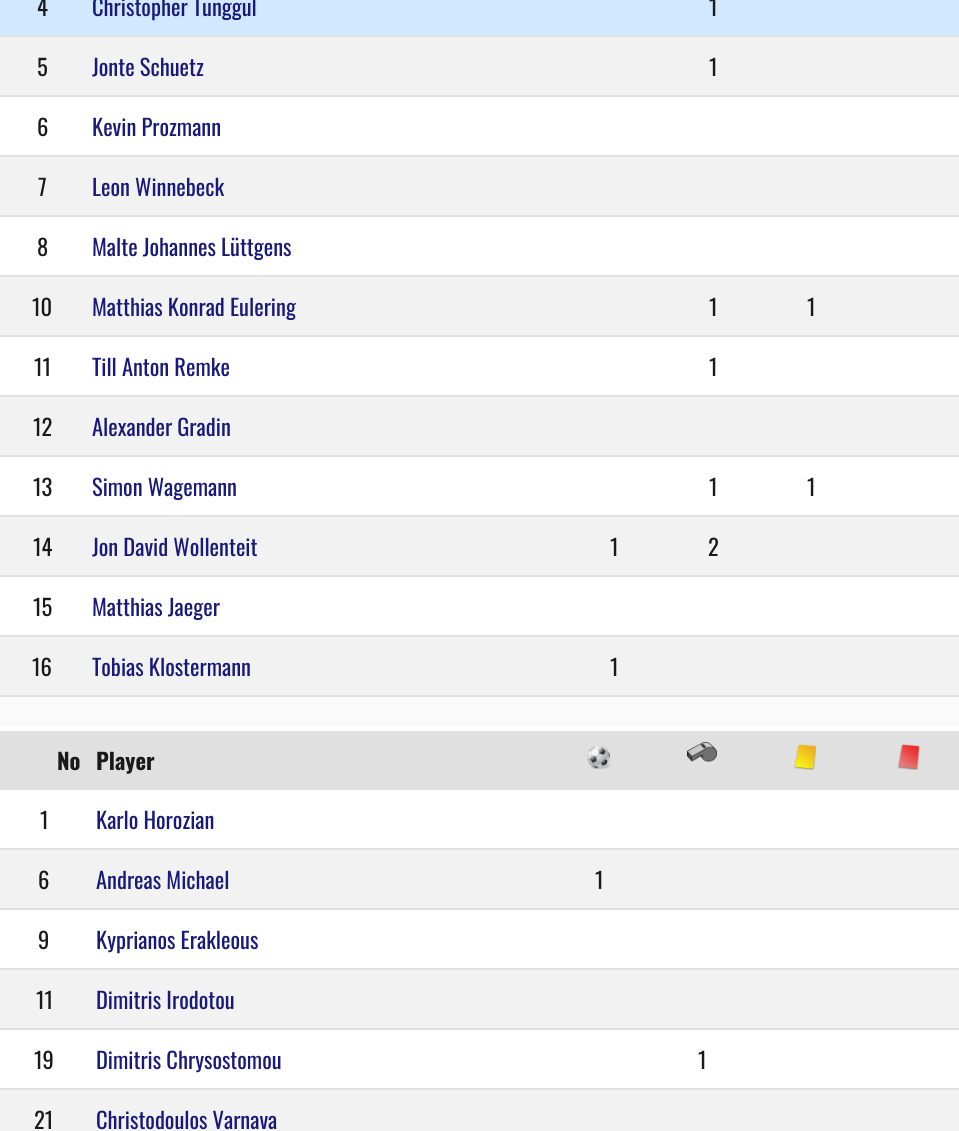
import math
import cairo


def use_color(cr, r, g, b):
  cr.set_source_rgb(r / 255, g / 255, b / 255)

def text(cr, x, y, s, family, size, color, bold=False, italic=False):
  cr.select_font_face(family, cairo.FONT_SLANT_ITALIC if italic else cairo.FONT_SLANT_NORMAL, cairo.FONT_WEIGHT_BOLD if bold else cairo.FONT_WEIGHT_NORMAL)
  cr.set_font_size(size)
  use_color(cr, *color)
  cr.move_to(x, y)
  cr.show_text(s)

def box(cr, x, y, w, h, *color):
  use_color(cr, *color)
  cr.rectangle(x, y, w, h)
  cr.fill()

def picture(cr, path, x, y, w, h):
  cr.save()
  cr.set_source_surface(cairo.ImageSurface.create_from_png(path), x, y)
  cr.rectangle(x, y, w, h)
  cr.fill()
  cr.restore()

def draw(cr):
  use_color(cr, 250, 250, 250)
  cr.paint()
  box(cr, 0, 35, 959, 2, 224, 224, 224)
  box(cr, 0, 0, 959, 35, 209, 232, 255)
  box(cr, 0, 37, 959, 58, 242, 242, 242)
  box(cr, 0, 95, 959, 2, 224, 224, 224)
  box(cr, 0, 97, 959, 58, 255, 255, 255)
  box(cr, 0, 155, 959, 2, 224, 224, 224)
  box(cr, 0, 157, 959, 58, 242, 242, 242)
  box(cr, 0, 215, 959, 2, 224, 224, 224)
  box(cr, 0, 217, 959, 58, 255, 255, 255)
  box(cr, 0, 275, 959, 2, 224, 224, 224)
  box(cr, 0, 277, 959, 58, 242, 242, 242)
  box(cr, 0, 335, 959, 2, 224, 224, 224)
  box(cr, 0, 337, 959, 58, 255, 255, 255)
  box(cr, 0, 395, 959, 2, 224, 224, 224)
  box(cr, 0, 397, 959, 58, 242, 242, 242)
  box(cr, 0, 455, 959, 2, 224, 224, 224)
  box(cr, 0, 457, 959, 58, 255, 255, 255)
  box(cr, 0, 515, 959, 2, 224, 224, 224)
  box(cr, 0, 517, 959, 58, 242, 242, 242)
  box(cr, 0, 575, 959, 2, 224, 224, 224)
  box(cr, 0, 577, 959, 58, 255, 255, 255)
  box(cr, 0, 635, 959, 2, 224, 224, 224)
  box(cr, 0, 637, 959, 58, 242, 242, 242)
  box(cr, 0, 695, 959, 2, 224, 224, 224)
  box(cr, 0, 726, 959, 5, 255, 255, 255)
  box(cr, 0, 731, 959, 59, 224, 224, 224)
  picture(cr, "img_01.png", 587, 746, 25, 23)
  picture(cr, "img_02.png", 687, 742, 30, 20)
  picture(cr, "img_03.png", 794, 744, 23, 26)
  picture(cr, "img_04.png", 897, 744, 23, 26)
  box(cr, 0, 790, 959, 58, 255, 255, 255)
  box(cr, 0, 848, 959, 2, 224, 224, 224)
  box(cr, 0, 850, 959, 58, 242, 242, 242)
  box(cr, 0, 908, 959, 2, 224, 224, 224)
  box(cr, 0, 910, 959, 58, 255, 255, 255)
  box(cr, 0, 968, 959, 2, 224, 224, 224)
  box(cr, 0, 970, 959, 58, 242, 242, 242)
  box(cr, 0, 1028, 959, 2, 224, 224, 224)
  box(cr, 0, 1030, 959, 58, 255, 255, 255)
  box(cr, 0, 1088, 959, 2, 224, 224, 224)
  box(cr, 0, 1090, 959, 41, 242, 242, 242)
  text(cr, 37, 16, "4", "Oswald", 22.5, (25, 25, 25))
  text(cr, 92, 16, "Christopher Tunggul", "Oswald", 22.5, (25, 25, 124))
  text(cr, 709, 16, "1", "Oswald", 22.5, (25, 25, 25))
  text(cr, 37, 76, "5", "Oswald", 22.5, (25, 25, 25))
  text(cr, 92, 76, "Jonte Schuetz", "Oswald", 22.5, (25, 25, 124))
  text(cr, 709, 76, "1", "Oswald", 22.5, (25, 25, 25))
  text(cr, 37, 136, "6", "Oswald", 22.5, (25, 25, 25))
  text(cr, 92, 136, "Kevin Prozmann", "Oswald", 22.5, (25, 25, 124))
  text(cr, 38, 196, "7", "Oswald", 22.5, (25, 25, 25))
  text(cr, 92, 196, "Leon Winnebeck", "Oswald", 22.5, (25, 25, 124))
  text(cr, 37, 256, "8", "Oswald", 22.5, (25, 25, 25))
  text(cr, 92, 256, "Malte Johannes Lüttgens", "Oswald", 22.5, (25, 25, 124))
  text(cr, 32, 316, "10", "Oswald", 22.5, (25, 25, 25))
  text(cr, 92, 316, "Matthias Konrad Eulering", "Oswald", 22.5, (25, 25, 124))
  text(cr, 709, 316, "1", "Oswald", 22.5, (25, 25, 25))
  text(cr, 807, 316, "1", "Oswald", 22.5, (25, 25, 25))
  text(cr, 34, 376, "11", "Oswald", 22.5, (25, 25, 25))
  text(cr, 92, 376, "Till Anton Remke", "Oswald", 22.5, (25, 25, 124))
  text(cr, 709, 376, "1", "Oswald", 22.5, (25, 25, 25))
  text(cr, 33, 436, "12", "Oswald", 22.5, (25, 25, 25))
  text(cr, 92, 436, "Alexander Gradin", "Oswald", 22.5, (25, 25, 124))
  text(cr, 33, 496, "13", "Oswald", 22.5, (25, 25, 25))
  text(cr, 92, 496, "Simon Wagemann", "Oswald", 22.5, (25, 25, 124))
  text(cr, 709, 496, "1", "Oswald", 22.5, (25, 25, 25))
  text(cr, 807, 496, "1", "Oswald", 22.5, (25, 25, 25))
  text(cr, 33, 556, "14", "Oswald", 22.5, (25, 25, 25))
  text(cr, 92, 556, "Jon David Wollenteit", "Oswald", 22.5, (25, 25, 124))
  text(cr, 610, 556, "1", "Oswald", 22.5, (25, 25, 25))
  text(cr, 708, 556, "2", "Oswald", 22.5, (25, 25, 25))
  text(cr, 33, 616, "15", "Oswald", 22.5, (25, 25, 25))
  text(cr, 92, 616, "Matthias Jaeger", "Oswald", 22.5, (25, 25, 124))
  text(cr, 32, 676, "16", "Oswald", 22.5, (25, 25, 25))
  text(cr, 92, 676, "Tobias Klostermann", "Oswald", 22.5, (25, 25, 124))
  text(cr, 610, 676, "1", "Oswald", 22.5, (25, 25, 25))
  text(cr, 57, 770, "No", "Oswald", 22.5, (25, 25, 25), bold=True)
  text(cr, 96, 770, "Player", "Oswald", 22.5, (25, 25, 25), bold=True)
  text(cr, 40, 829, "1", "Oswald", 22.5, (25, 25, 25))
  text(cr, 96, 829, "Karlo Horozian", "Oswald", 22.5, (25, 25, 124))
  text(cr, 38, 889, "6", "Oswald", 22.5, (25, 25, 25))
  text(cr, 96, 889, "Andreas Michael", "Oswald", 22.5, (25, 25, 124))
  text(cr, 595, 889, "1", "Oswald", 22.5, (25, 25, 25))
  text(cr, 38, 949, "9", "Oswald", 22.5, (25, 25, 25))
  text(cr, 96, 949, "Kyprianos Erakleous", "Oswald", 22.5, (25, 25, 124))
  text(cr, 36, 1009, "11", "Oswald", 22.5, (25, 25, 25))
  text(cr, 96, 1009, "Dimitris Irodotou", "Oswald", 22.5, (25, 25, 124))
  text(cr, 34, 1069, "19", "Oswald", 22.5, (25, 25, 25))
  text(cr, 96, 1069, "Dimitris Chrysostomou", "Oswald", 22.5, (25, 25, 124))
  text(cr, 698, 1069, "1", "Oswald", 22.5, (25, 25, 25))
  text(cr, 34, 1129, "21", "Oswald", 22.5, (25, 25, 25))
  text(cr, 96, 1129, "Christodoulos Varnava", "Oswald", 22.5, (25, 25, 124))


surface = cairo.ImageSurface(cairo.FORMAT_RGB24, 959, 1131)
cr = cairo.Context(surface)
options = cairo.FontOptions()
options.set_hint_metrics(cairo.HINT_METRICS_OFF)
options.set_hint_style(cairo.HINT_STYLE_NONE)
cr.set_font_options(options)
cr.set_miter_limit(4)
draw(cr)
surface.write_to_png("out.png")
